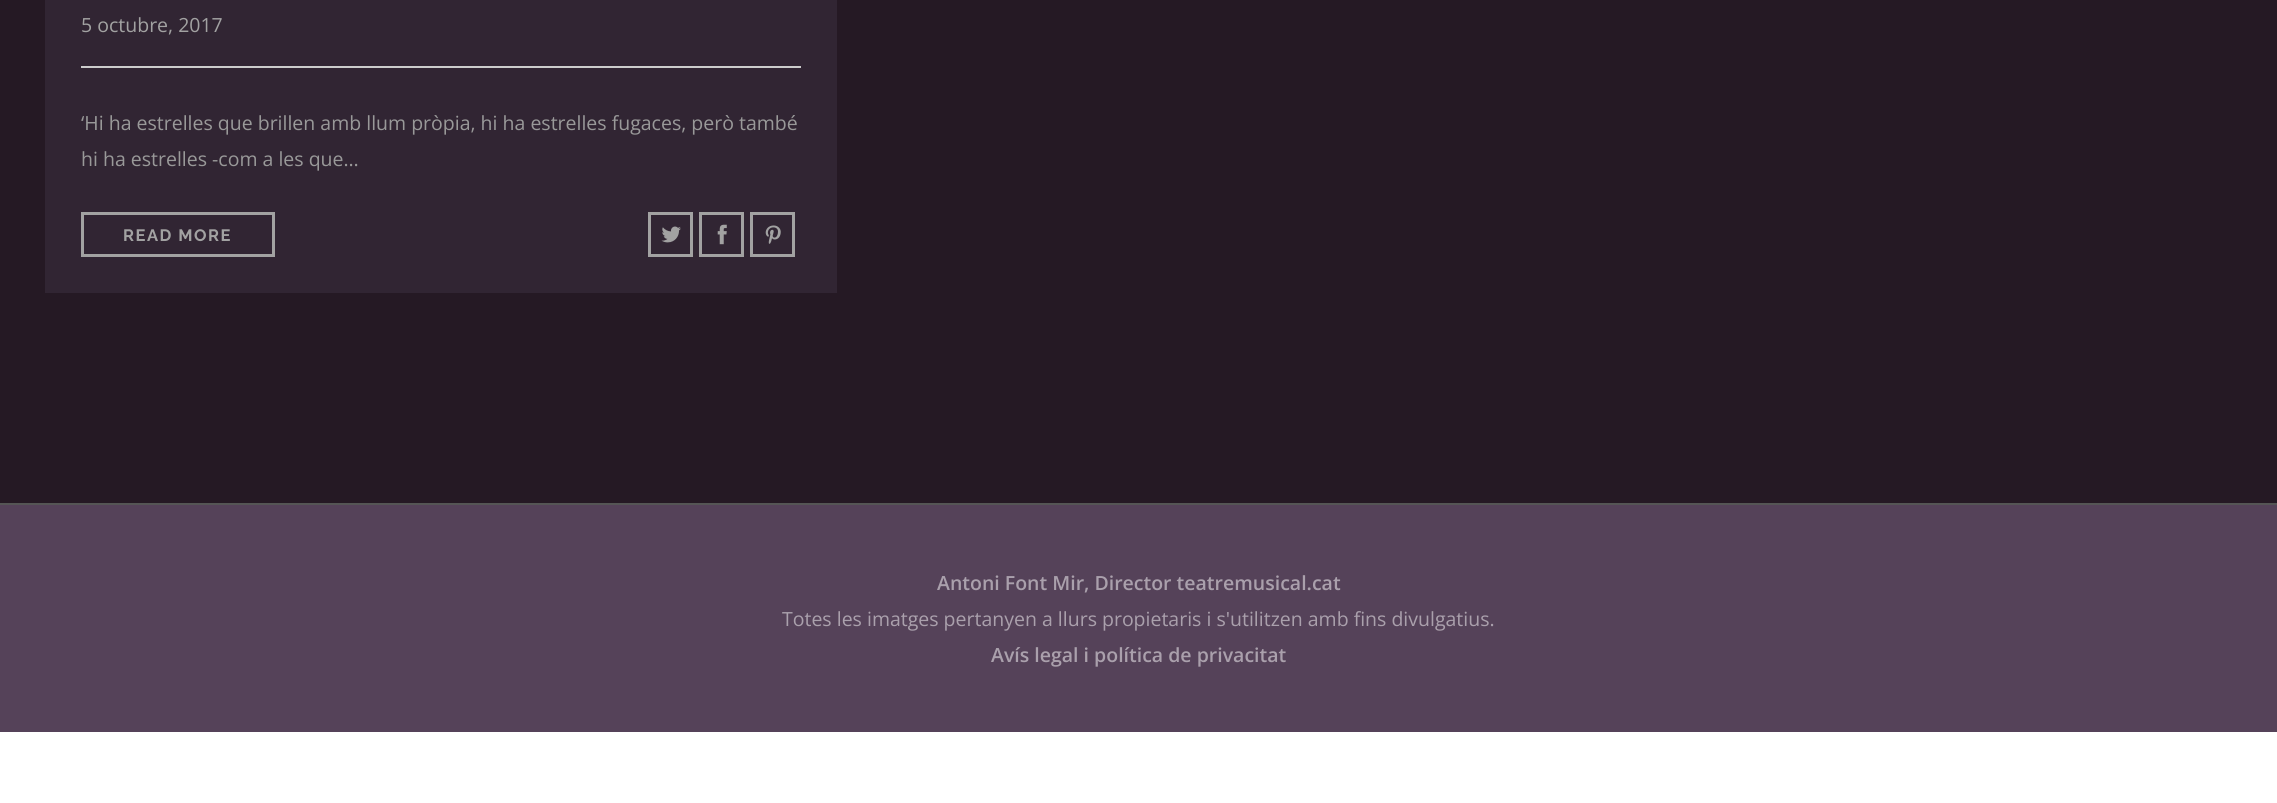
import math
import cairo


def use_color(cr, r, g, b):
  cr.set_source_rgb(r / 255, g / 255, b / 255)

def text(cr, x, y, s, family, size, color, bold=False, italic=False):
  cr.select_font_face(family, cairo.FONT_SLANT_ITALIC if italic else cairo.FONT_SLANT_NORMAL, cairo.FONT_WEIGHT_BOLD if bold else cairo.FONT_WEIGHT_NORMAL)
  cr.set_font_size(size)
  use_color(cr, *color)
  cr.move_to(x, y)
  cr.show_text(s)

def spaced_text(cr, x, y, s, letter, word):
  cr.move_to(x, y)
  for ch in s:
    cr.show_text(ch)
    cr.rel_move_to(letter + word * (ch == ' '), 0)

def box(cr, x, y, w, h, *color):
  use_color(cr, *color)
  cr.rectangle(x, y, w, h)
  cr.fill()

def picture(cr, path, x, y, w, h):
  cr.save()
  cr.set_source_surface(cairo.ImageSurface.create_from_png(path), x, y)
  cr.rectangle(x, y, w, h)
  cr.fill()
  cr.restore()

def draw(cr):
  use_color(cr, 37, 25, 36)
  cr.paint()
  box(cr, 45, 0, 792, 293, 49, 37, 51)
  box(cr, 81, 66, 720, 2, 204, 204, 204)
  cr.rectangle(82.5, 213.5, 191, 42)
  use_color(cr, 162, 162, 162)
  cr.set_line_width(3)
  cr.stroke()
  cr.rectangle(649.5, 213.5, 42, 42)
  cr.stroke()
  picture(cr, "img_01.png", 661, 226, 20, 17)
  cr.rectangle(700.5, 213.5, 42, 42)
  cr.stroke()
  picture(cr, "img_02.png", 717, 224, 10, 21)
  cr.rectangle(751.5, 213.5, 42, 42)
  cr.stroke()
  picture(cr, "img_03.png", 765, 225, 16, 19)
  box(cr, 0, 505, 2277, 227, 85, 66, 89)
  box(cr, 0, 503, 2277, 2, 85, 85, 85)
  box(cr, 0, 732, 2277, 71, 255, 255, 255)
  text(cr, 81, 32, "5 octubre, 2017", "Open Sans", 19.5, (162, 162, 162))
  text(cr, 81, 130, "‘Hi ha estrelles que brillen amb llum pròpia, hi ha estrelles fugaces, però també", "Open Sans", 19.5, (153, 153, 153))
  text(cr, 81, 166, "hi ha estrelles -com a les que…", "Open Sans", 19.5, (153, 153, 153))
  cr.select_font_face("Raleway", cairo.FONT_SLANT_NORMAL, cairo.FONT_WEIGHT_BOLD)
  cr.set_font_size(16.5)
  use_color(cr, 162, 162, 162)
  spaced_text(cr, 123, 241, "READ MORE", 1.5, 0)
  text(cr, 937, 590, "Antoni Font Mir, Director teatremusical.cat", "Open Sans SemiBold", 19.5, (170, 160, 172))
  text(cr, 782, 626, "Totes les imatges pertanyen a llurs propietaris i s'utilitzen amb fins divulgatius.", "Open Sans", 19.5, (170, 160, 172))
  text(cr, 991, 662, "Avís legal i política de privacitat", "Open Sans SemiBold", 19.5, (170, 160, 172))


surface = cairo.ImageSurface(cairo.FORMAT_RGB24, 2277, 803)
cr = cairo.Context(surface)
options = cairo.FontOptions()
options.set_hint_metrics(cairo.HINT_METRICS_OFF)
options.set_hint_style(cairo.HINT_STYLE_NONE)
cr.set_font_options(options)
cr.set_miter_limit(4)
draw(cr)
surface.write_to_png("out.png")
